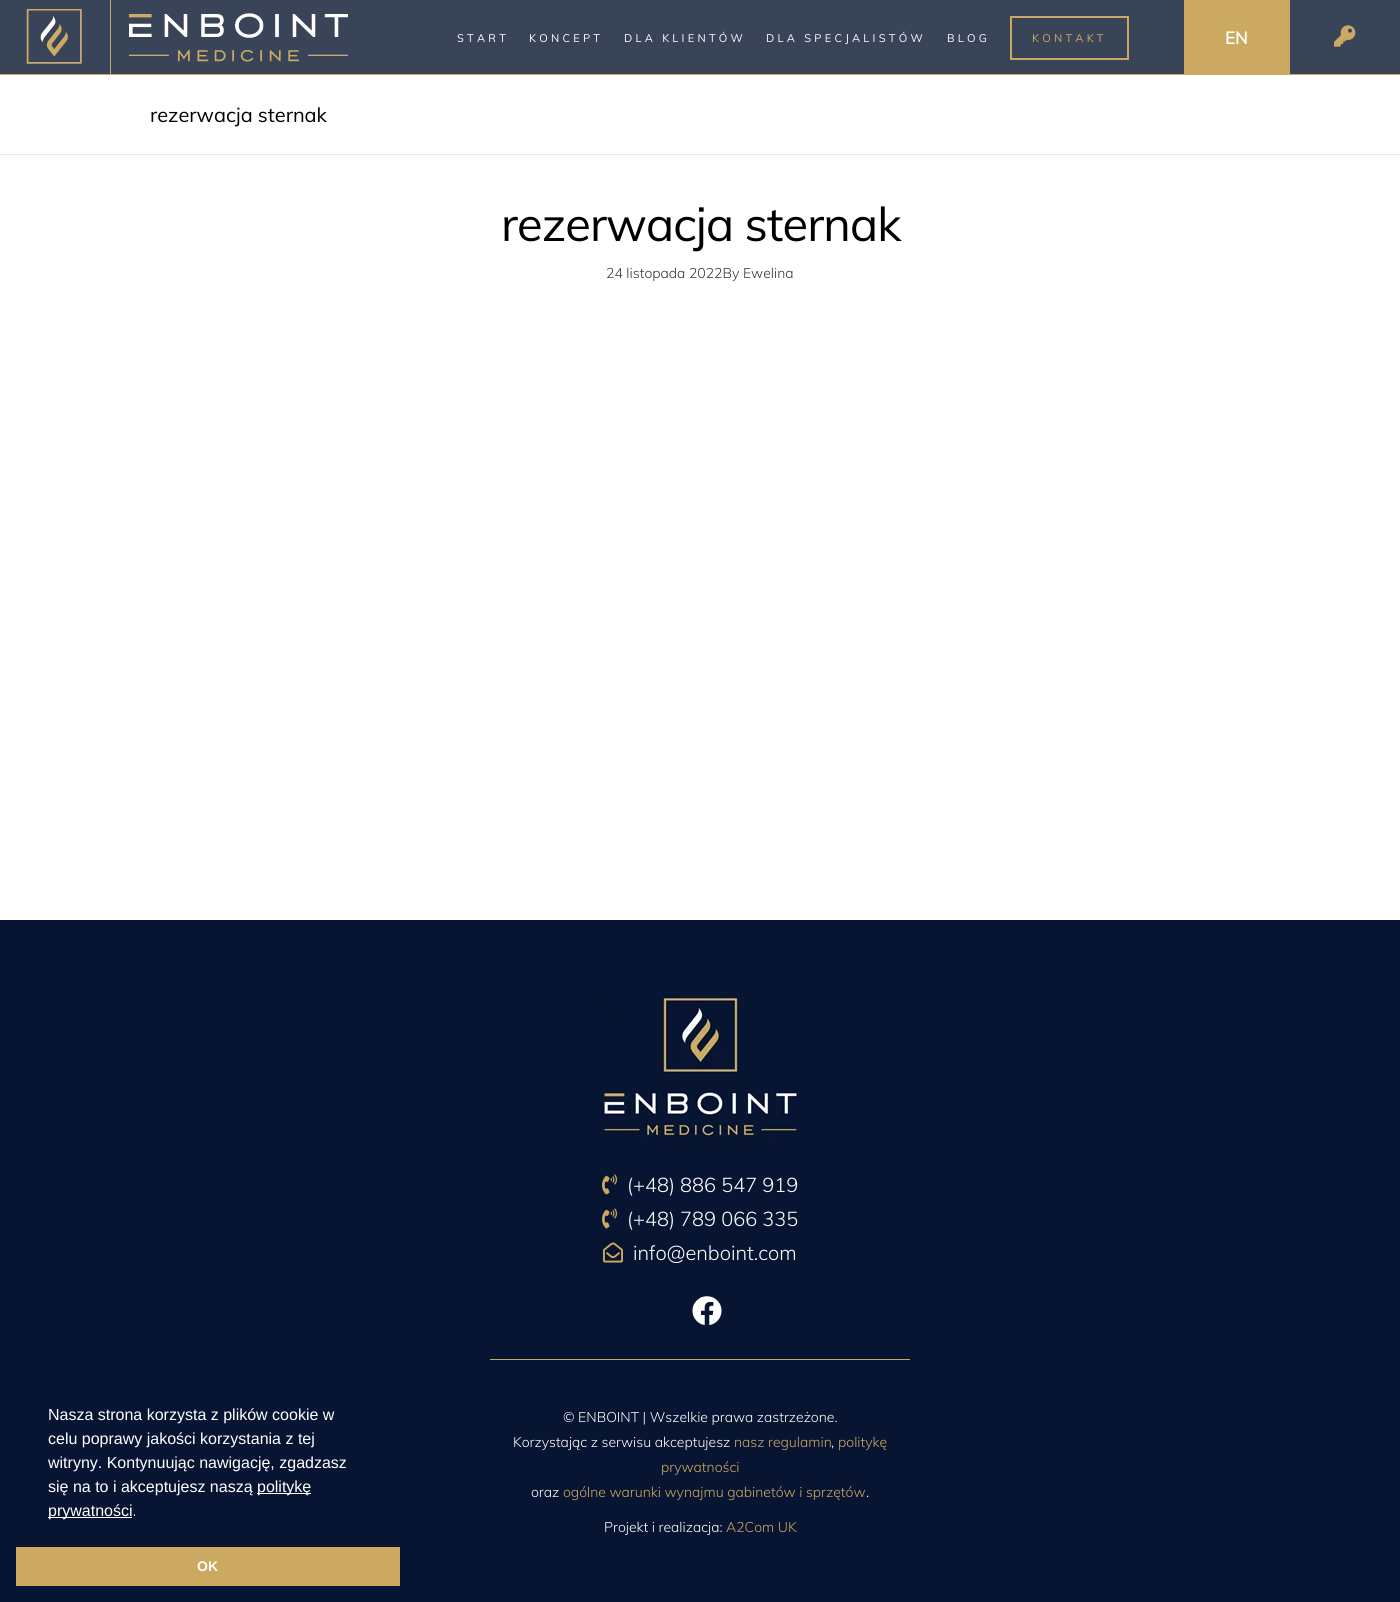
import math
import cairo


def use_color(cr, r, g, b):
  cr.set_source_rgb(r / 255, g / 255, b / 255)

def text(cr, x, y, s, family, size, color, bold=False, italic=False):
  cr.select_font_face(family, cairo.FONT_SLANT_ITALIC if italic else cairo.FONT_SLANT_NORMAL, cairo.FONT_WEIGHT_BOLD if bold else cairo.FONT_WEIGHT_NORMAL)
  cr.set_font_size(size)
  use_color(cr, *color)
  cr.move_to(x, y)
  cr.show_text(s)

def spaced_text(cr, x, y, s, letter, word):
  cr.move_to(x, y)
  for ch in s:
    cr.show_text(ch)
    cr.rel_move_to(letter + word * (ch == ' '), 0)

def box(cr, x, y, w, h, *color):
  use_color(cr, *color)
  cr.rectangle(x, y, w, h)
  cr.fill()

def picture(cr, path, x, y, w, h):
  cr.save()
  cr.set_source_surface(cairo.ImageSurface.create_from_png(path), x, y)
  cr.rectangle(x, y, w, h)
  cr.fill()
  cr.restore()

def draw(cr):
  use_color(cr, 255, 255, 255)
  cr.paint()
  box(cr, 0, 0, 1400, 74, 57, 68, 89)
  box(cr, 0, 74, 1400, 1, 203, 169, 96)
  picture(cr, "img_01.png", 26, 0, 322, 74)
  cr.rectangle(1011, 17, 117, 42)
  cr.stroke()
  box(cr, 1184, 0, 105, 74, 203, 169, 96)
  box(cr, 1289, 0, 1, 75, 203, 169, 96)
  picture(cr, "img_02.png", 1334, 25, 22, 22)
  box(cr, 0, 154, 1400, 1, 236, 232, 229)
  box(cr, 0, 920, 1400, 682, 8, 21, 50)
  picture(cr, "img_03.png", 600, 995, 200, 143)
  picture(cr, "img_04.png", 602, 1174, 15, 21)
  picture(cr, "img_04.png", 602, 1208, 15, 21)
  picture(cr, "img_05.png", 603, 1242, 20, 21)
  picture(cr, "img_06.png", 692, 1296, 30, 29)
  box(cr, 490, 1359, 420, 1, 203, 169, 96)
  box(cr, 257, 1493, 54, 1, 255, 255, 255)
  box(cr, 48, 1517, 84, 1, 255, 255, 255)
  box(cr, 16, 1547, 384, 39, 203, 169, 96)
  cr.select_font_face("Muli")
  cr.set_font_size(11)
  use_color(cr, 255, 255, 255)
  spaced_text(cr, 457, 42, "START", 3.25, 0)
  spaced_text(cr, 529, 42, "KONCEPT", 3.25, 0)
  spaced_text(cr, 624, 42, "DLA KLIENTÓW", 3.25, 0)
  spaced_text(cr, 766, 42, "DLA SPECJALISTÓW", 3.25, 0)
  spaced_text(cr, 947, 42, "BLOG", 3.25, 0)
  use_color(cr, 203, 169, 96)
  spaced_text(cr, 1032, 42, "KONTAKT", 3.25, 0)
  text(cr, 1225, 44, "EN", "Muli", 17, (255, 255, 255), bold=True)
  text(cr, 150, 122, "rezerwacja sternak", "Muli", 20, (0, 0, 0))
  cr.set_font_size(47)
  spaced_text(cr, 501, 241, "rezerwacja sternak", -0.9, 0)
  text(cr, 606, 278, "24 listopada 2022By Ewelina", "Muli Light", 14, (51, 51, 51))
  text(cr, 627, 1192, "(+48) 886 547 919", "Muli Light", 20, (255, 255, 255))
  text(cr, 627, 1226, "(+48) 789 066 335", "Muli Light", 20, (255, 255, 255))
  text(cr, 633, 1260, "info@enboint.com", "Muli Light", 20, (255, 255, 255))
  text(cr, 563, 1422, "© ENBOINT | Wszelkie prawa zastrzeżone.", "Muli Light", 14, (255, 255, 255))
  text(cr, 513, 1447, "Korzystając z serwisu akceptujesz", "Muli Light", 14, (255, 255, 255))
  text(cr, 734, 1447, "nasz regulamin", "Muli Light", 14, (203, 169, 96))
  text(cr, 831, 1447, ",", "Muli Light", 14, (255, 255, 255))
  text(cr, 838, 1447, "politykę", "Muli Light", 14, (203, 169, 96))
  text(cr, 661, 1472, "prywatności", "Muli Light", 14, (203, 169, 96))
  text(cr, 531, 1497, "oraz", "Muli Light", 14, (255, 255, 255))
  text(cr, 563, 1497, "ogólne warunki wynajmu gabinetów i sprzętów", "Muli Light", 14, (203, 169, 96))
  text(cr, 866, 1497, ".", "Muli Light", 14, (255, 255, 255))
  text(cr, 604, 1532, "Projekt i realizacja:", "Muli Light", 14, (255, 255, 255))
  text(cr, 726, 1532, "A2Com UK", "Muli Light", 14, (203, 169, 96))
  text(cr, 48, 1420, "Nasza strona korzysta z plików cookie w", "Liberation Sans", 16, (255, 255, 255))
  text(cr, 48, 1444, "celu poprawy jakości korzystania z tej", "Liberation Sans", 16, (255, 255, 255))
  text(cr, 48, 1468, "witryny. Kontynuując nawigację, zgadzasz", "Liberation Sans", 16, (255, 255, 255))
  text(cr, 48, 1492, "się na to i akceptujesz naszą", "Liberation Sans", 16, (255, 255, 255))
  text(cr, 257, 1492, "politykę", "Liberation Sans", 16, (255, 255, 255))
  text(cr, 48, 1516, "prywatności.", "Liberation Sans", 16, (255, 255, 255))
  text(cr, 197, 1571, "OK", "Liberation Sans", 14, (255, 255, 255), bold=True)


surface = cairo.ImageSurface(cairo.FORMAT_RGB24, 1400, 1602)
cr = cairo.Context(surface)
options = cairo.FontOptions()
options.set_hint_metrics(cairo.HINT_METRICS_OFF)
options.set_hint_style(cairo.HINT_STYLE_NONE)
cr.set_font_options(options)
cr.set_miter_limit(4)
draw(cr)
surface.write_to_png("out.png")
